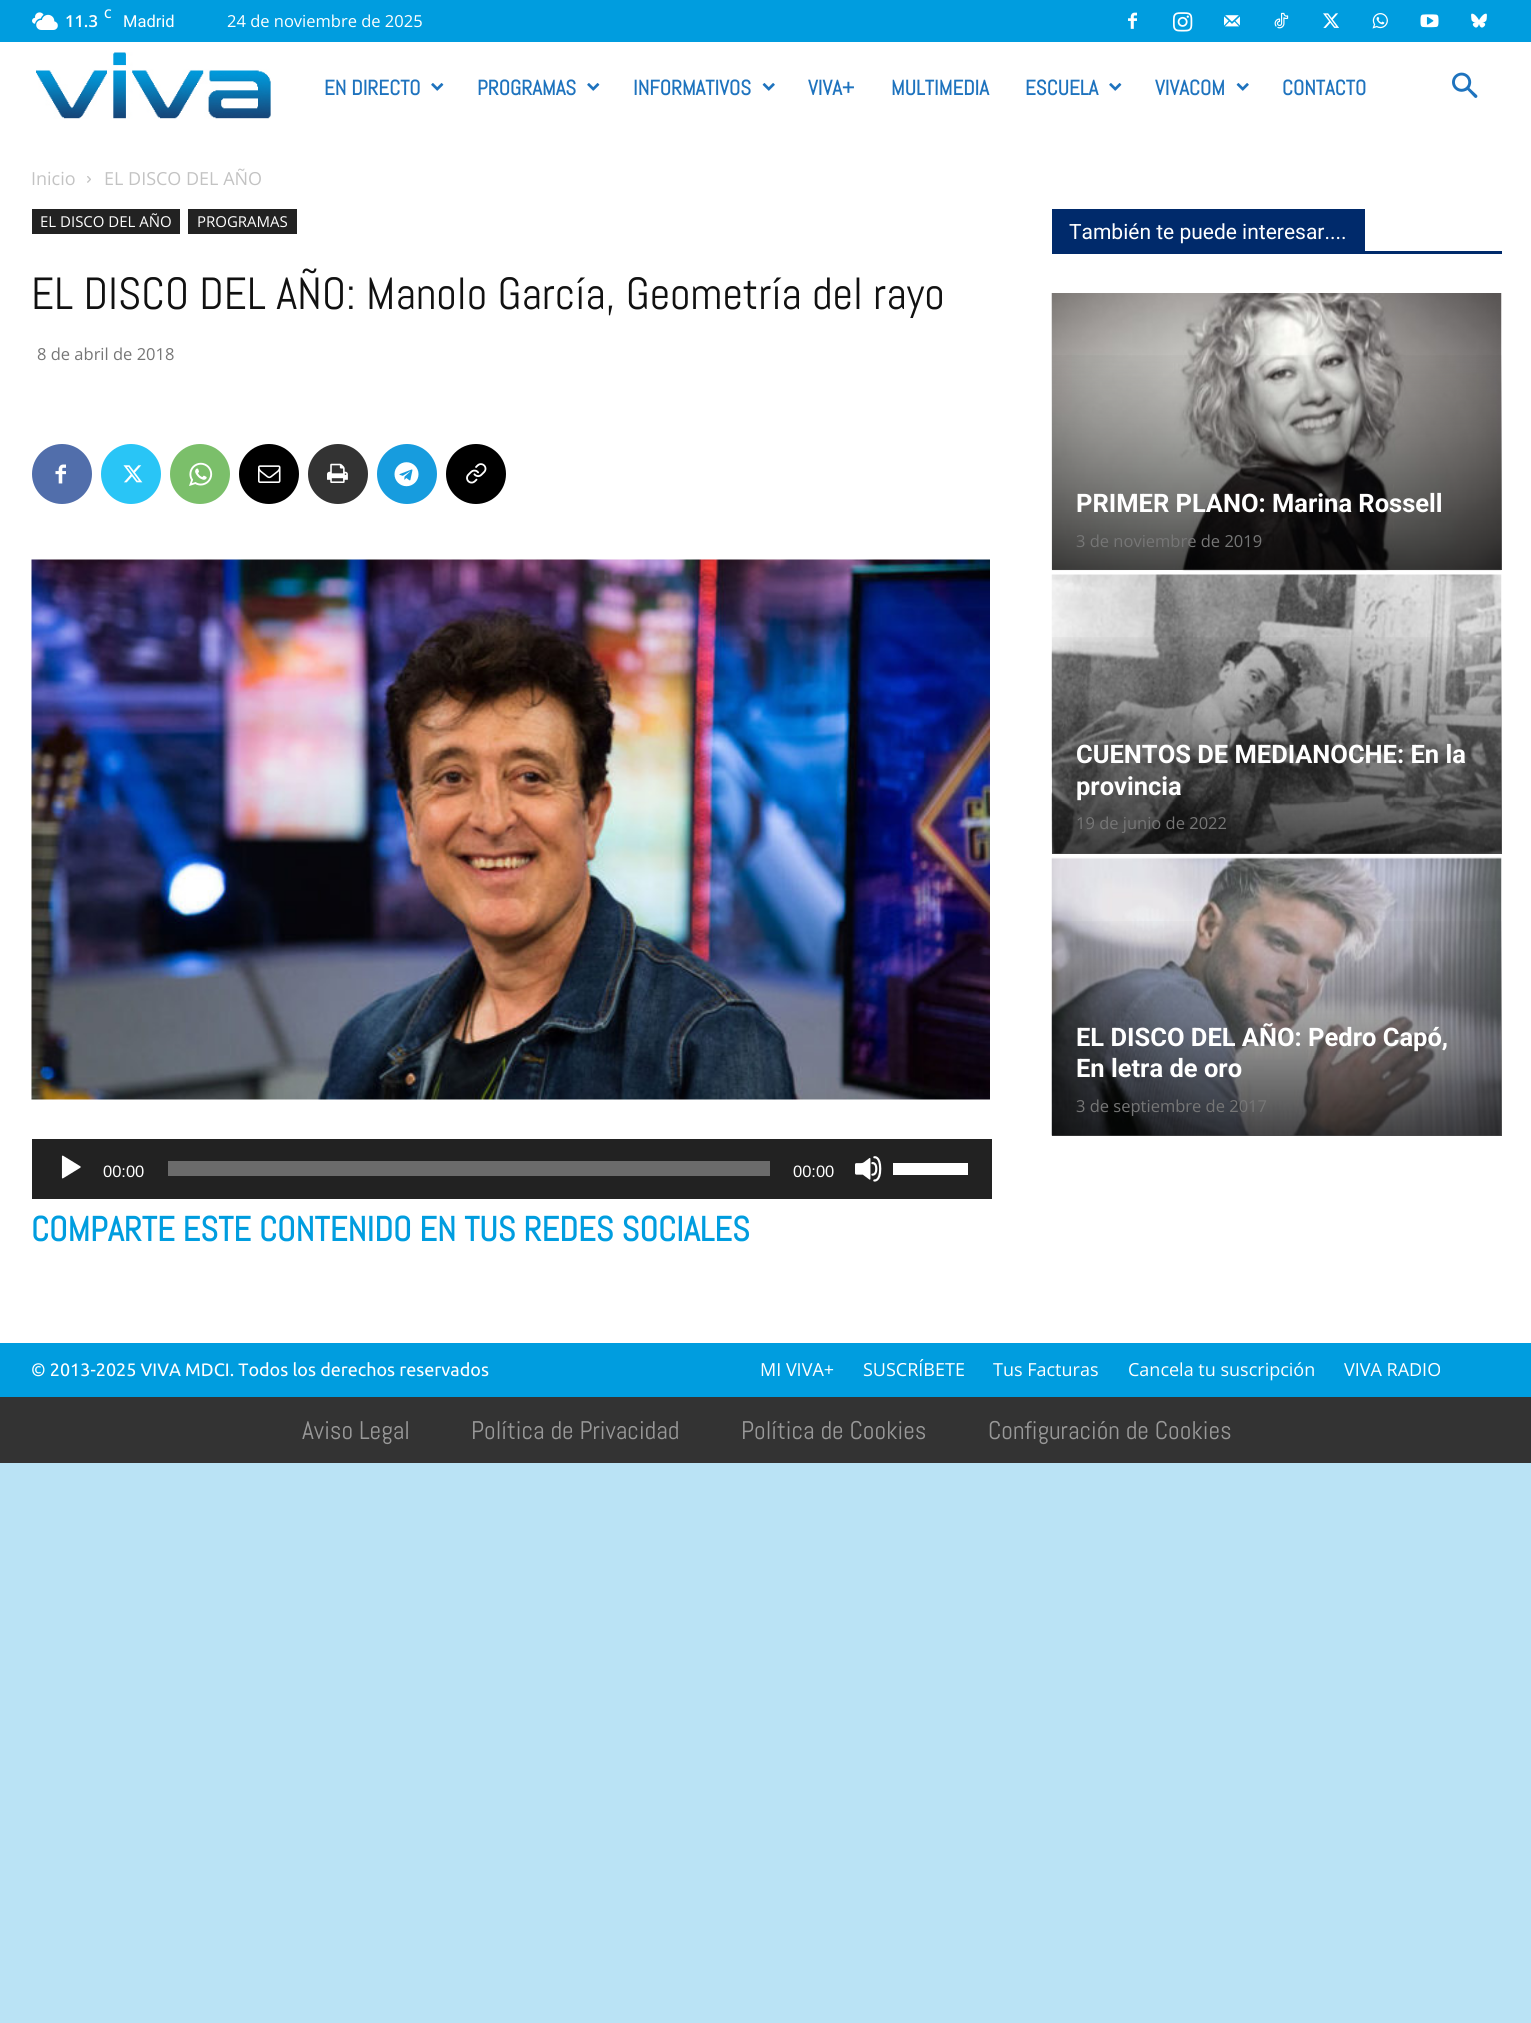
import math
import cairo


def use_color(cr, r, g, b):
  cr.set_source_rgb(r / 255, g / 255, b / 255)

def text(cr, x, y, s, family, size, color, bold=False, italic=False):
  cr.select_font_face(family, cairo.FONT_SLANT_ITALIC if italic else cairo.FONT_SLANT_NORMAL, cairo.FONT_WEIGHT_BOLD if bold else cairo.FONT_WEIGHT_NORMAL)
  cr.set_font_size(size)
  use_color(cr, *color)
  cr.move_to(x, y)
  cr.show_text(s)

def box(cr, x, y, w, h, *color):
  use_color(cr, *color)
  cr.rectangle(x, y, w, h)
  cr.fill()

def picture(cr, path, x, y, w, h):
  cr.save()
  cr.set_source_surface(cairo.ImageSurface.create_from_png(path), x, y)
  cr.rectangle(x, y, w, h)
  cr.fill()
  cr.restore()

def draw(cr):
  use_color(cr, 186, 227, 245)
  cr.paint()
  box(cr, 0, 0, 1531, 42, 0, 157, 223)
  picture(cr, "img_01.png", 32, 12, 26, 18)
  picture(cr, "img_02.png", 1128, 12, 9, 17)
  picture(cr, "img_03.png", 1173, 12, 20, 20)
  picture(cr, "img_04.png", 1224, 15, 16, 12)
  picture(cr, "img_05.png", 1274, 12, 15, 17)
  picture(cr, "img_06.png", 1323, 13, 16, 15)
  picture(cr, "img_07.png", 1372, 13, 16, 16)
  picture(cr, "img_08.png", 1420, 14, 19, 14)
  picture(cr, "img_09.png", 1471, 13, 16, 15)
  box(cr, 0, 42, 1531, 1301, 255, 255, 255)
  picture(cr, "img_10.png", 36, 52, 235, 67)
  picture(cr, "img_11.png", 431, 83, 13, 8)
  picture(cr, "img_11.png", 587, 83, 13, 8)
  picture(cr, "img_12.png", 762, 83, 13, 8)
  picture(cr, "img_11.png", 1109, 83, 13, 8)
  picture(cr, "img_12.png", 1236, 83, 13, 8)
  picture(cr, "img_13.png", 1452, 72, 26, 26)
  picture(cr, "img_14.png", 87, 176, 4, 7)
  box(cr, 32, 209, 148, 25, 34, 34, 34)
  box(cr, 188, 209, 109, 25, 34, 34, 34)
  use_color(cr, 81, 110, 171)
  cr.arc(62, 474, 30, 0, 2 * math.pi)
  cr.fill()
  picture(cr, "img_15.png", 55, 464, 11, 20)
  use_color(cr, 41, 197, 246)
  cr.arc(131, 474, 30, 0, 2 * math.pi)
  cr.fill()
  picture(cr, "img_16.png", 123, 465, 20, 18)
  use_color(cr, 123, 191, 106)
  cr.arc(200, 474, 30, 0, 2 * math.pi)
  cr.fill()
  picture(cr, "img_17.png", 189, 462, 24, 24)
  use_color(cr, 0, 0, 0)
  cr.arc(269, 474, 30, 0, 2 * math.pi)
  cr.fill()
  picture(cr, "img_18.png", 258, 465, 23, 18)
  use_color(cr, 51, 51, 51)
  cr.arc(338, 474, 30, 0, 2 * math.pi)
  cr.fill()
  picture(cr, "img_19.png", 327, 463, 21, 20)
  use_color(cr, 23, 156, 222)
  cr.arc(407, 474, 30, 0, 2 * math.pi)
  cr.fill()
  picture(cr, "img_20.png", 394, 462, 25, 25)
  use_color(cr, 0, 0, 0)
  cr.arc(476, 474, 30, 0, 2 * math.pi)
  cr.fill()
  picture(cr, "img_21.png", 466, 463, 21, 21)
  picture(cr, "img_22.png", 31, 559, 959, 541)
  box(cr, 32, 1139, 960, 60, 34, 34, 34)
  picture(cr, "img_23.png", 61, 1155, 20, 24)
  box(cr, 168, 1161, 602, 15, 107, 107, 107)
  picture(cr, "img_24.png", 855, 1156, 27, 26)
  box(cr, 893, 1163, 75, 12, 255, 255, 255)
  box(cr, 1052, 251, 450, 3, 0, 42, 107)
  box(cr, 1052, 209, 313, 42, 0, 42, 107)
  picture(cr, "img_25.png", 1051, 293, 451, 278)
  gradient = cairo.LinearGradient(1277, 348, 1277, 570)
  gradient.add_color_stop_rgba(0, 0, 0, 0, 0)
  gradient.add_color_stop_rgba(1, 0, 0, 0, 0.7)
  cr.set_source(gradient)
  cr.rectangle(1052, 355, 450, 215)
  cr.fill()
  picture(cr, "img_26.png", 1051, 574, 451, 280)
  gradient = cairo.LinearGradient(1277, 630, 1277, 854)
  gradient.add_color_stop_rgba(0, 0, 0, 0, 0)
  gradient.add_color_stop_rgba(1, 0, 0, 0, 0.7)
  cr.set_source(gradient)
  cr.rectangle(1052, 637, 450, 217)
  cr.fill()
  picture(cr, "img_27.png", 1051, 857, 451, 279)
  gradient = cairo.LinearGradient(1277, 914, 1277, 1136)
  gradient.add_color_stop_rgba(0, 0, 0, 0, 0)
  gradient.add_color_stop_rgba(1, 0, 0, 0, 0.7)
  cr.set_source(gradient)
  cr.rectangle(1052, 921, 450, 215)
  cr.fill()
  box(cr, 0, 1343, 1531, 54, 0, 157, 223)
  box(cr, 0, 1397, 1531, 66, 51, 51, 51)
  text(cr, 104, 18, "C", "Open Sans SemiBold", 12, (255, 255, 255))
  text(cr, 65, 27, "11.3", "Open Sans SemiBold", 16.5, (255, 255, 255))
  text(cr, 123, 27, "Madrid", "Roboto", 16.5, (255, 255, 255))
  text(cr, 227, 27, "24 de noviembre de 2025", "Open Sans", 16.5, (255, 255, 255))
  text(cr, 324, 95, "EN DIRECTO", "Abel", 21, (30, 115, 190), bold=True)
  text(cr, 477, 95, "PROGRAMAS", "Abel", 21, (30, 115, 190), bold=True)
  text(cr, 633, 95, "INFORMATIVOS", "Abel", 21, (30, 115, 190), bold=True)
  text(cr, 808, 95, "VIVA+", "Abel", 21, (30, 115, 190), bold=True)
  text(cr, 891, 95, "MULTIMEDIA", "Abel", 21, (30, 115, 190), bold=True)
  text(cr, 1025, 95, "ESCUELA", "Abel", 21, (30, 115, 190), bold=True)
  text(cr, 1155, 95, "VIVACOM", "Abel", 21, (30, 115, 190), bold=True)
  text(cr, 1282, 95, "CONTACTO", "Abel", 21, (30, 115, 190), bold=True)
  text(cr, 31, 185, "Inicio", "Open Sans", 18, (195, 195, 195))
  text(cr, 104, 185, "EL DISCO DEL AÑO", "Open Sans", 18, (195, 195, 195))
  text(cr, 40, 227, "EL DISCO DEL AÑO", "Open Sans", 15, (255, 255, 255))
  text(cr, 197, 227, "PROGRAMAS", "Open Sans", 15, (255, 255, 255))
  text(cr, 31, 309, "EL DISCO DEL AÑO: Manolo García, Geometría del rayo", "Abel", 45, (17, 17, 17))
  text(cr, 37, 360, "8 de abril de 2018", "Open Sans", 16.5, (118, 118, 118))
  text(cr, 103, 1177, "00:00", "Liberation Sans", 16.5, (255, 255, 255))
  text(cr, 793, 1177, "00:00", "Liberation Sans", 16.5, (255, 255, 255))
  text(cr, 31, 1241, "COMPARTE ESTE CONTENIDO EN TUS REDES SOCIALES", "Abel", 34.5, (0, 157, 223), bold=True)
  text(cr, 1069, 239, "También te puede interesar....", "Roboto", 21, (255, 255, 255))
  text(cr, 1076, 512, "PRIMER PLANO: Marina Rossell", "Roboto", 25.5, (255, 255, 255), bold=True)
  text(cr, 1076, 547, "3 de noviembre de 2019", "Open Sans", 16.5, (118, 118, 118))
  text(cr, 1076, 763, "CUENTOS DE MEDIANOCHE: En la", "Roboto", 25.5, (255, 255, 255), bold=True)
  text(cr, 1076, 795, "provincia", "Roboto", 25.5, (255, 255, 255), bold=True)
  text(cr, 1076, 829, "19 de junio de 2022", "Open Sans", 16.5, (118, 118, 118))
  text(cr, 1076, 1046, "EL DISCO DEL AÑO: Pedro Capó,", "Roboto", 25.5, (255, 255, 255), bold=True)
  text(cr, 1076, 1077, "En letra de oro", "Roboto", 25.5, (255, 255, 255), bold=True)
  text(cr, 1076, 1112, "3 de septiembre de 2017", "Open Sans", 16.5, (118, 118, 118))
  text(cr, 31, 1376, "© 2013-2025 VIVA MDCI. Todos los derechos reservados", "Ubuntu", 18, (255, 255, 255))
  text(cr, 760, 1376, "MI VIVA+", "Open Sans", 18, (255, 255, 255))
  text(cr, 863, 1376, "SUSCRÍBETE", "Open Sans", 18, (255, 255, 255))
  text(cr, 993, 1376, "Tus Facturas", "Open Sans", 18, (255, 255, 255))
  text(cr, 1128, 1376, "Cancela tu suscripción", "Open Sans", 18, (255, 255, 255))
  text(cr, 1344, 1376, "VIVA RADIO", "Open Sans", 18, (255, 255, 255))
  text(cr, 302, 1439, "Aviso Legal", "Abel", 25.5, (153, 153, 153))
  text(cr, 471, 1439, "Política de Privacidad", "Abel", 25.5, (153, 153, 153))
  text(cr, 741, 1439, "Política de Cookies", "Abel", 25.5, (153, 153, 153))
  text(cr, 988, 1439, "Configuración de Cookies", "Abel", 25.5, (153, 153, 153))


surface = cairo.ImageSurface(cairo.FORMAT_RGB24, 1531, 2023)
cr = cairo.Context(surface)
options = cairo.FontOptions()
options.set_hint_metrics(cairo.HINT_METRICS_OFF)
options.set_hint_style(cairo.HINT_STYLE_NONE)
cr.set_font_options(options)
cr.set_miter_limit(4)
draw(cr)
surface.write_to_png("out.png")
